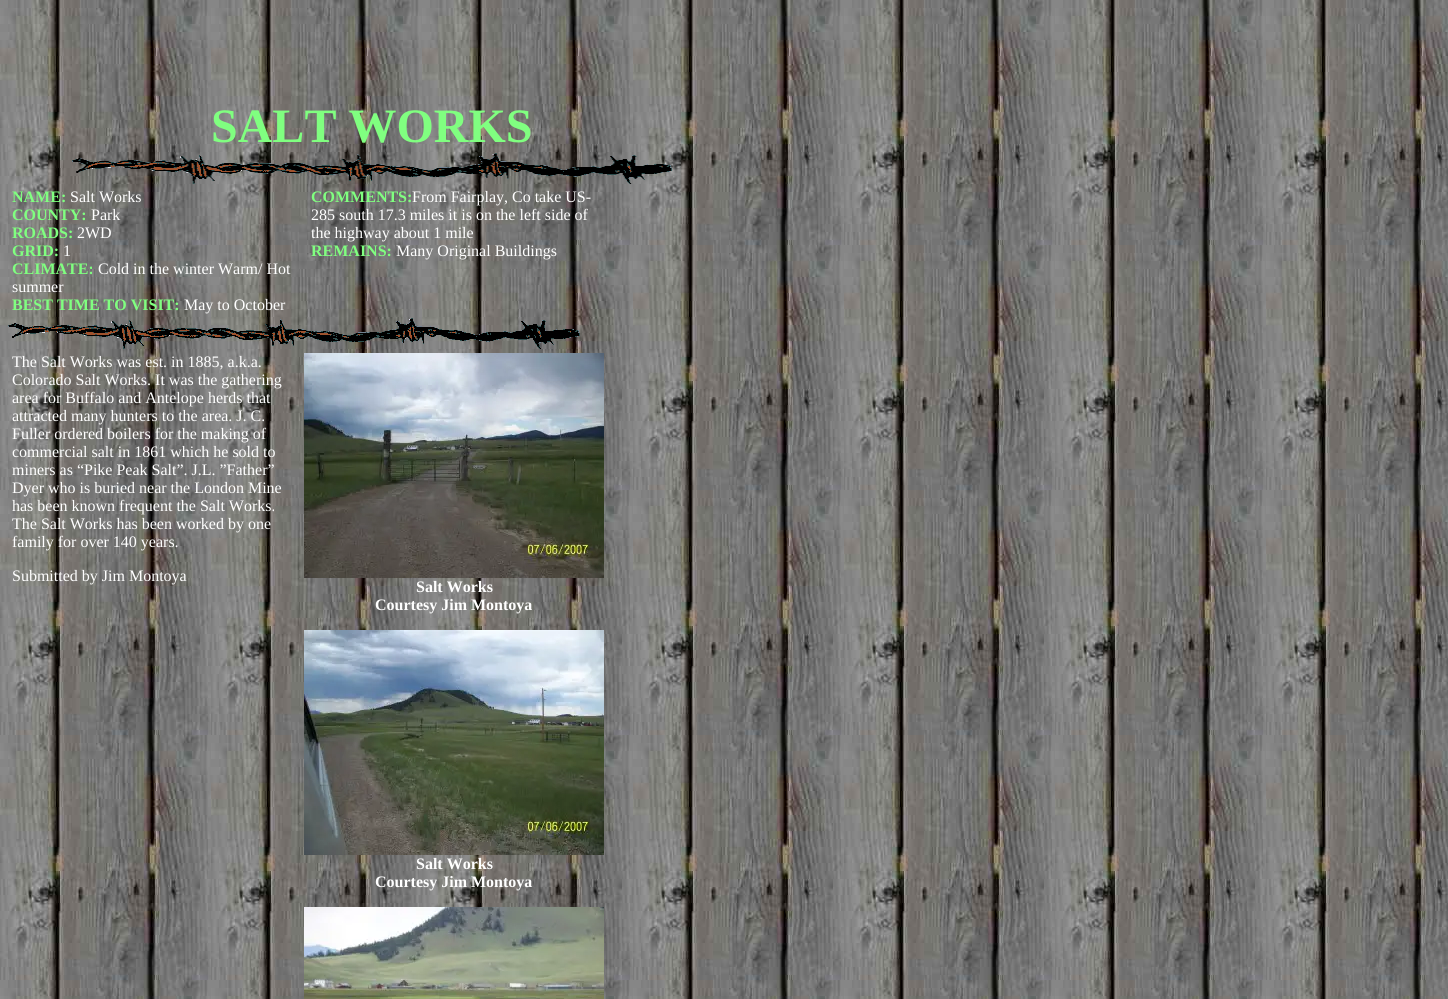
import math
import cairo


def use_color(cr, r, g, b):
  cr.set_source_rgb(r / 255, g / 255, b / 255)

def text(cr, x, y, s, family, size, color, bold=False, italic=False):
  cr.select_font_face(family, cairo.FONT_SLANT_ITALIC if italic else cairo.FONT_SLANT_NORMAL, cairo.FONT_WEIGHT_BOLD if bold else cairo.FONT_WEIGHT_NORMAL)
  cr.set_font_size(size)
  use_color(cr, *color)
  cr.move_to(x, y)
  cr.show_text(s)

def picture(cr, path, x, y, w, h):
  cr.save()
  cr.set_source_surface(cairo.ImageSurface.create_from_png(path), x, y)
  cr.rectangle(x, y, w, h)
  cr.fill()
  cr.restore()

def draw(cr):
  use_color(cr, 255, 255, 255)
  cr.paint()
  picture(cr, "img_01.png", 0, 0, 1448, 999)
  picture(cr, "img_02.png", 72, 153, 600, 31)
  picture(cr, "img_03.png", 8, 318, 572, 31)
  picture(cr, "img_04.png", 304, 353, 300, 225)
  picture(cr, "img_05.png", 304, 630, 300, 225)
  picture(cr, "img_06.png", 304, 907, 300, 92)
  text(cr, 211, 142, "SALT WORKS", "Liberation Serif", 48, (128, 255, 128), bold=True)
  text(cr, 12, 202, "NAME:", "Liberation Serif", 16, (128, 255, 128), bold=True)
  text(cr, 70, 202, "Salt Works", "Liberation Serif", 16, (255, 255, 255))
  text(cr, 12, 220, "COUNTY:", "Liberation Serif", 16, (128, 255, 128), bold=True)
  text(cr, 91, 220, "Park", "Liberation Serif", 16, (255, 255, 255))
  text(cr, 12, 238, "ROADS:", "Liberation Serif", 16, (128, 255, 128), bold=True)
  text(cr, 77, 238, "2WD", "Liberation Serif", 16, (255, 255, 255))
  text(cr, 12, 256, "GRID:", "Liberation Serif", 16, (128, 255, 128), bold=True)
  text(cr, 63, 256, "1", "Liberation Serif", 16, (255, 255, 255))
  text(cr, 12, 274, "CLIMATE:", "Liberation Serif", 16, (128, 255, 128), bold=True)
  text(cr, 98, 274, "Cold in the winter Warm/ Hot", "Liberation Serif", 16, (255, 255, 255))
  text(cr, 12, 292, "summer", "Liberation Serif", 16, (255, 255, 255))
  text(cr, 12, 310, "BEST TIME TO VISIT:", "Liberation Serif", 16, (128, 255, 128), bold=True)
  text(cr, 184, 310, "May to October", "Liberation Serif", 16, (255, 255, 255))
  text(cr, 311, 202, "COMMENTS:", "Liberation Serif", 16, (128, 255, 128), bold=True)
  text(cr, 412, 202, "From Fairplay, Co take US-", "Liberation Serif", 16, (255, 255, 255))
  text(cr, 311, 220, "285 south 17.3 miles it is on the left side of", "Liberation Serif", 16, (255, 255, 255))
  text(cr, 311, 238, "the highway about 1 mile", "Liberation Serif", 16, (255, 255, 255))
  text(cr, 311, 256, "REMAINS:", "Liberation Serif", 16, (128, 255, 128), bold=True)
  text(cr, 396, 256, "Many Original Buildings", "Liberation Serif", 16, (255, 255, 255))
  text(cr, 12, 367, "The Salt Works was est. in 1885, a.k.a.", "Liberation Serif", 16, (255, 255, 255))
  text(cr, 12, 385, "Colorado Salt Works. It was the gathering", "Liberation Serif", 16, (255, 255, 255))
  text(cr, 12, 403, "area for Buffalo and Antelope herds that", "Liberation Serif", 16, (255, 255, 255))
  text(cr, 12, 421, "attracted many hunters to the area. J. C.", "Liberation Serif", 16, (255, 255, 255))
  text(cr, 12, 439, "Fuller ordered boilers for the making of", "Liberation Serif", 16, (255, 255, 255))
  text(cr, 12, 457, "commercial salt in 1861 which he sold to", "Liberation Serif", 16, (255, 255, 255))
  text(cr, 12, 475, "miners as “Pike Peak Salt”. J.L. ”Father”", "Liberation Serif", 16, (255, 255, 255))
  text(cr, 12, 493, "Dyer who is buried near the London Mine", "Liberation Serif", 16, (255, 255, 255))
  text(cr, 12, 511, "has been known frequent the Salt Works.", "Liberation Serif", 16, (255, 255, 255))
  text(cr, 12, 529, "The Salt Works has been worked by one", "Liberation Serif", 16, (255, 255, 255))
  text(cr, 12, 547, "family for over 140 years.", "Liberation Serif", 16, (255, 255, 255))
  text(cr, 12, 581, "Submitted by Jim Montoya", "Liberation Serif", 16, (255, 255, 255))
  text(cr, 416, 592, "Salt Works", "Liberation Serif", 16, (255, 255, 255), bold=True)
  text(cr, 375, 610, "Courtesy Jim Montoya", "Liberation Serif", 16, (255, 255, 255), bold=True)
  text(cr, 416, 869, "Salt Works", "Liberation Serif", 16, (255, 255, 255), bold=True)
  text(cr, 375, 887, "Courtesy Jim Montoya", "Liberation Serif", 16, (255, 255, 255), bold=True)


surface = cairo.ImageSurface(cairo.FORMAT_RGB24, 1448, 999)
cr = cairo.Context(surface)
options = cairo.FontOptions()
options.set_hint_metrics(cairo.HINT_METRICS_OFF)
options.set_hint_style(cairo.HINT_STYLE_NONE)
cr.set_font_options(options)
cr.set_miter_limit(4)
draw(cr)
surface.write_to_png("out.png")
